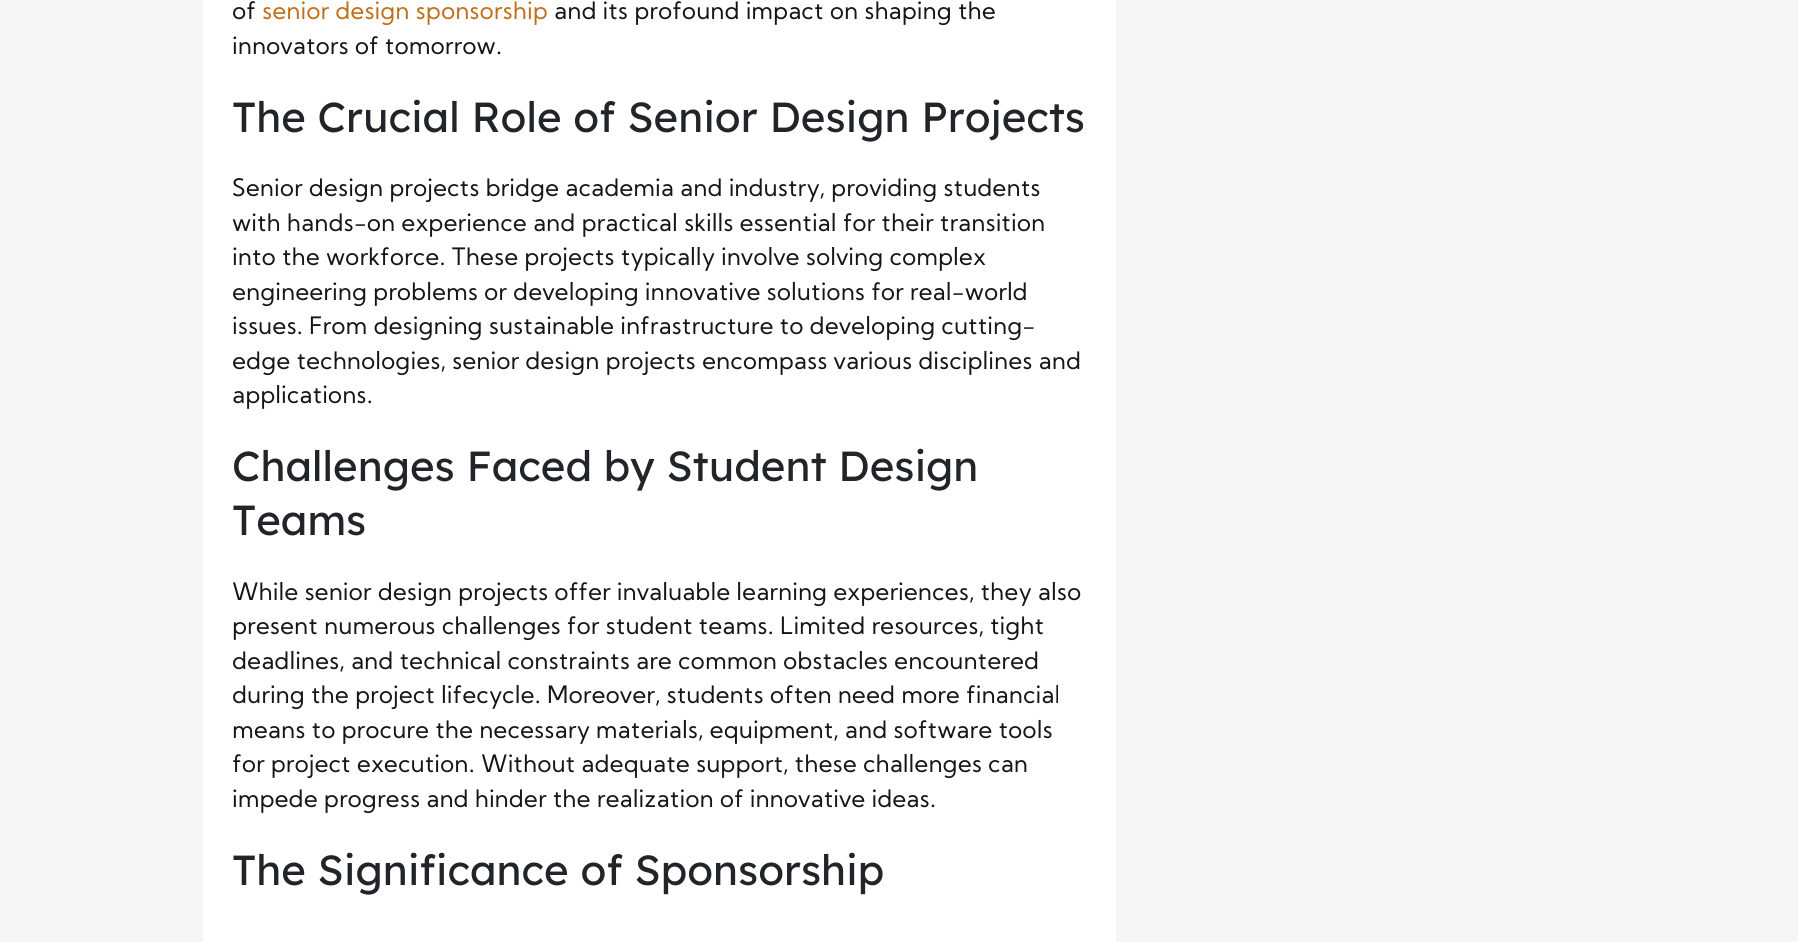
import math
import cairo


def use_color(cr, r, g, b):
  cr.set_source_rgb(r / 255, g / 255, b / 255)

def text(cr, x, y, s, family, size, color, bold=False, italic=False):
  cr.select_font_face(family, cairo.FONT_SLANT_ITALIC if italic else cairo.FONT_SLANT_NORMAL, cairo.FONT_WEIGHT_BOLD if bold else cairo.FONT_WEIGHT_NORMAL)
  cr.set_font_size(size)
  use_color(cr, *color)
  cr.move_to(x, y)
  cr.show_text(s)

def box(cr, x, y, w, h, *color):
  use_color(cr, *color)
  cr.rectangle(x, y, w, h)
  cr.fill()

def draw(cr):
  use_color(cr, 245, 245, 245)
  cr.paint()
  box(cr, 203, 0, 913, 942, 255, 255, 255)
  text(cr, 232, 19, "of", "Kumbh Sans", 24, (22, 22, 22))
  text(cr, 262, 19, "senior design sponsorship", "Kumbh Sans", 24, (194, 110, 25))
  text(cr, 554, 19, "and its profound impact on shaping the", "Kumbh Sans", 24, (22, 22, 22))
  text(cr, 232, 54, "innovators of tomorrow.", "Kumbh Sans", 24, (22, 22, 22))
  text(cr, 232, 132, "The Crucial Role of Senior Design Projects", "Lexend Deca", 42, (33, 37, 41))
  text(cr, 232, 196, "Senior design projects bridge academia and industry, providing students", "Kumbh Sans", 24, (22, 22, 22))
  text(cr, 232, 231, "with hands-on experience and practical skills essential for their transition", "Kumbh Sans", 24, (22, 22, 22))
  text(cr, 232, 265, "into the workforce. These projects typically involve solving complex", "Kumbh Sans", 24, (22, 22, 22))
  text(cr, 232, 300, "engineering problems or developing innovative solutions for real-world", "Kumbh Sans", 24, (22, 22, 22))
  text(cr, 232, 334, "issues. From designing sustainable infrastructure to developing cutting-", "Kumbh Sans", 24, (22, 22, 22))
  text(cr, 232, 369, "edge technologies, senior design projects encompass various disciplines and", "Kumbh Sans", 24, (22, 22, 22))
  text(cr, 232, 403, "applications.", "Kumbh Sans", 24, (22, 22, 22))
  text(cr, 232, 481, "Challenges Faced by Student Design", "Lexend Deca", 42, (33, 37, 41))
  text(cr, 232, 535, "Teams", "Lexend Deca", 42, (33, 37, 41))
  text(cr, 232, 600, "While senior design projects offer invaluable learning experiences, they also", "Kumbh Sans", 24, (22, 22, 22))
  text(cr, 232, 634, "present numerous challenges for student teams. Limited resources, tight", "Kumbh Sans", 24, (22, 22, 22))
  text(cr, 232, 669, "deadlines, and technical constraints are common obstacles encountered", "Kumbh Sans", 24, (22, 22, 22))
  text(cr, 232, 703, "during the project lifecycle. Moreover, students often need more financial", "Kumbh Sans", 24, (22, 22, 22))
  text(cr, 232, 738, "means to procure the necessary materials, equipment, and software tools", "Kumbh Sans", 24, (22, 22, 22))
  text(cr, 232, 772, "for project execution. Without adequate support, these challenges can", "Kumbh Sans", 24, (22, 22, 22))
  text(cr, 232, 807, "impede progress and hinder the realization of innovative ideas.", "Kumbh Sans", 24, (22, 22, 22))
  text(cr, 232, 885, "The Significance of Sponsorship", "Lexend Deca", 42, (33, 37, 41))


surface = cairo.ImageSurface(cairo.FORMAT_RGB24, 1798, 942)
cr = cairo.Context(surface)
options = cairo.FontOptions()
options.set_hint_metrics(cairo.HINT_METRICS_OFF)
options.set_hint_style(cairo.HINT_STYLE_NONE)
cr.set_font_options(options)
cr.set_miter_limit(4)
draw(cr)
surface.write_to_png("out.png")
